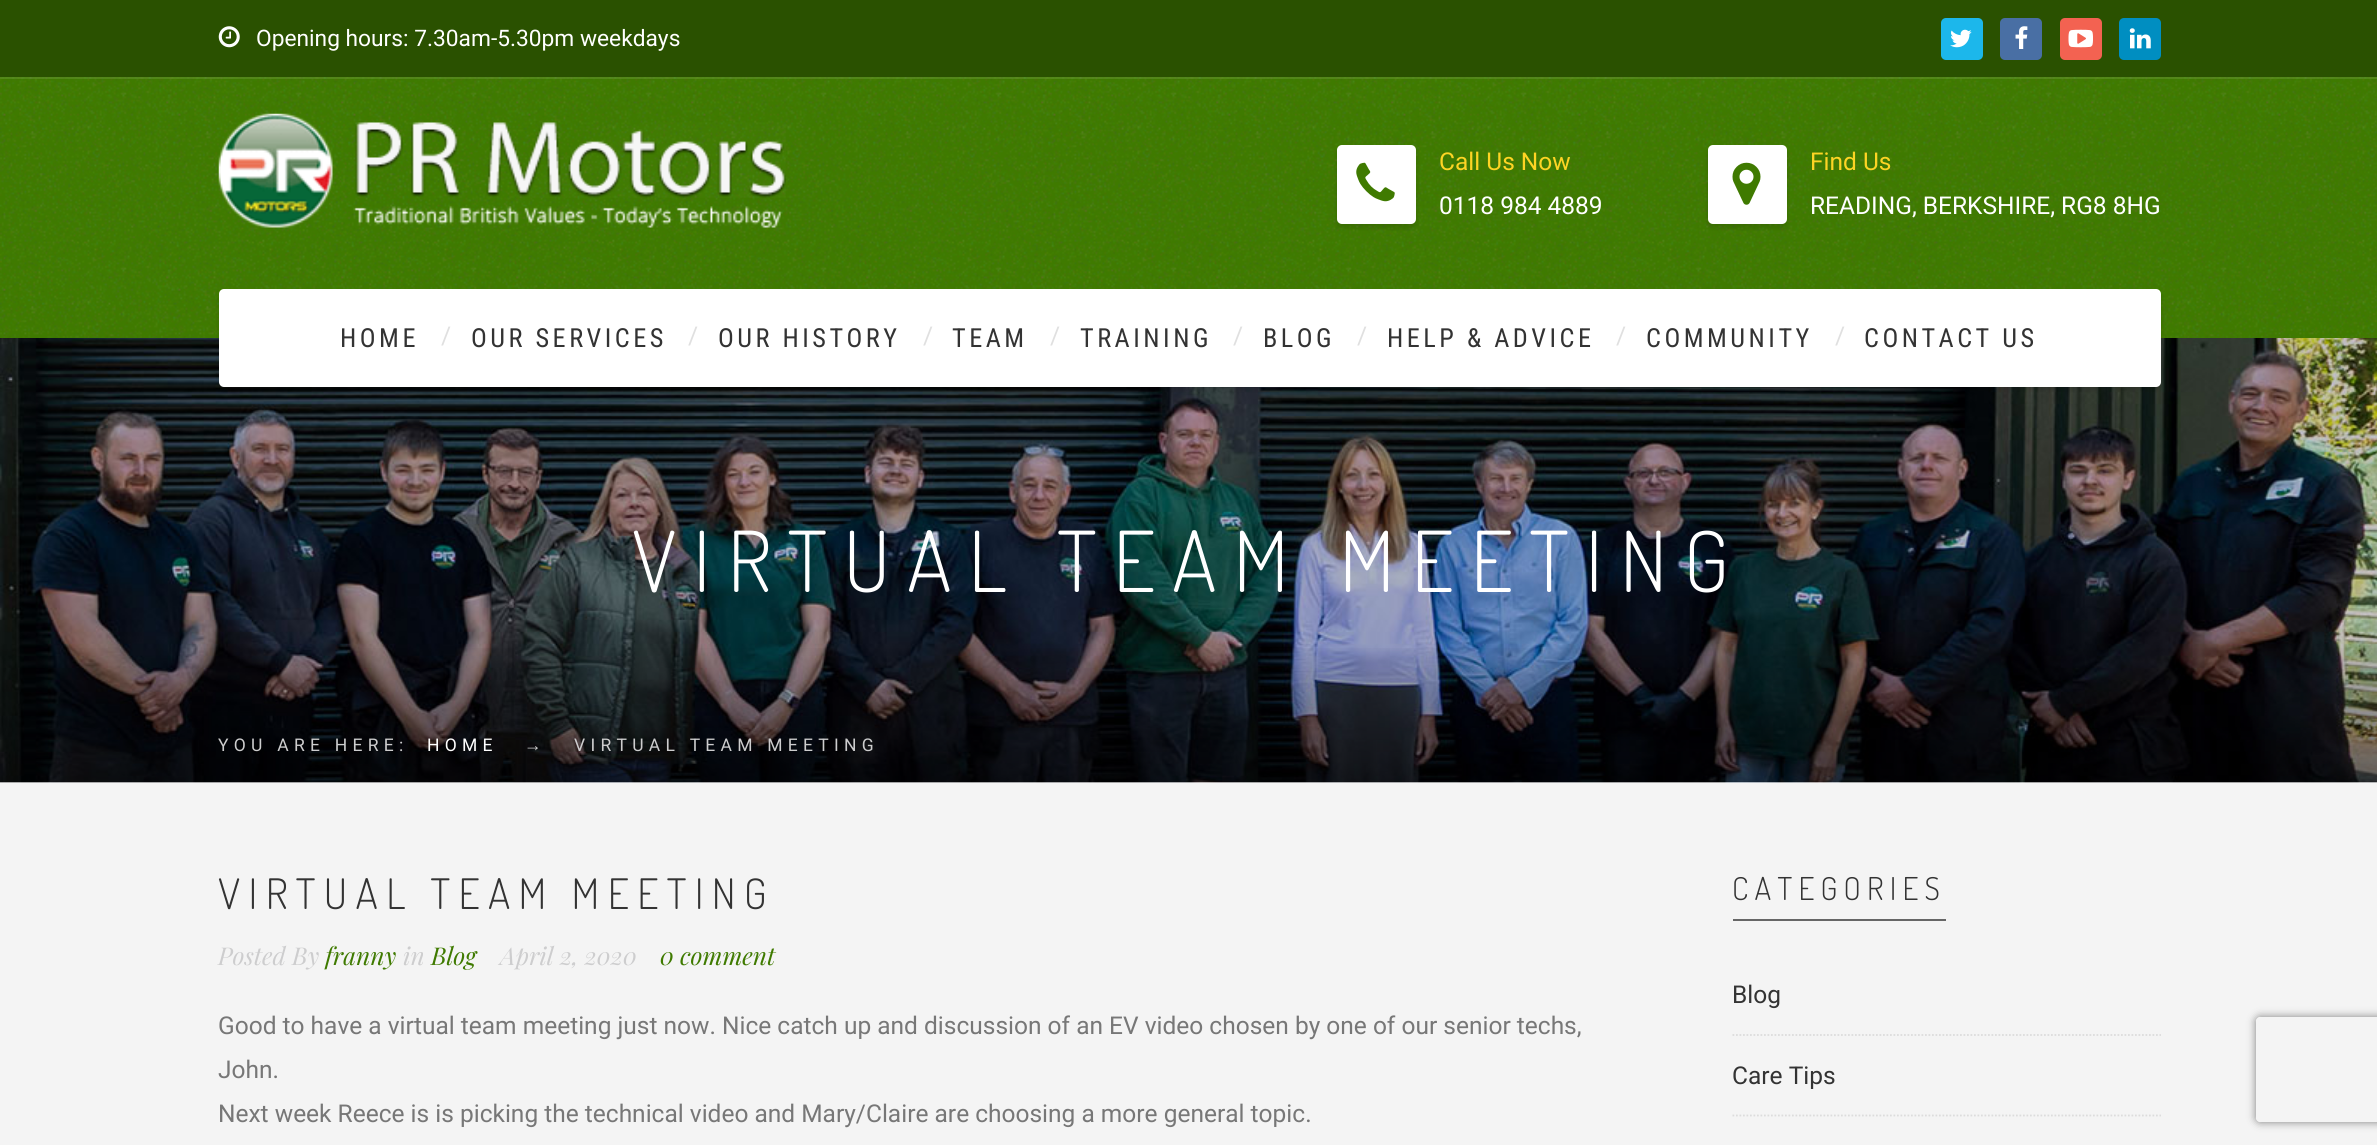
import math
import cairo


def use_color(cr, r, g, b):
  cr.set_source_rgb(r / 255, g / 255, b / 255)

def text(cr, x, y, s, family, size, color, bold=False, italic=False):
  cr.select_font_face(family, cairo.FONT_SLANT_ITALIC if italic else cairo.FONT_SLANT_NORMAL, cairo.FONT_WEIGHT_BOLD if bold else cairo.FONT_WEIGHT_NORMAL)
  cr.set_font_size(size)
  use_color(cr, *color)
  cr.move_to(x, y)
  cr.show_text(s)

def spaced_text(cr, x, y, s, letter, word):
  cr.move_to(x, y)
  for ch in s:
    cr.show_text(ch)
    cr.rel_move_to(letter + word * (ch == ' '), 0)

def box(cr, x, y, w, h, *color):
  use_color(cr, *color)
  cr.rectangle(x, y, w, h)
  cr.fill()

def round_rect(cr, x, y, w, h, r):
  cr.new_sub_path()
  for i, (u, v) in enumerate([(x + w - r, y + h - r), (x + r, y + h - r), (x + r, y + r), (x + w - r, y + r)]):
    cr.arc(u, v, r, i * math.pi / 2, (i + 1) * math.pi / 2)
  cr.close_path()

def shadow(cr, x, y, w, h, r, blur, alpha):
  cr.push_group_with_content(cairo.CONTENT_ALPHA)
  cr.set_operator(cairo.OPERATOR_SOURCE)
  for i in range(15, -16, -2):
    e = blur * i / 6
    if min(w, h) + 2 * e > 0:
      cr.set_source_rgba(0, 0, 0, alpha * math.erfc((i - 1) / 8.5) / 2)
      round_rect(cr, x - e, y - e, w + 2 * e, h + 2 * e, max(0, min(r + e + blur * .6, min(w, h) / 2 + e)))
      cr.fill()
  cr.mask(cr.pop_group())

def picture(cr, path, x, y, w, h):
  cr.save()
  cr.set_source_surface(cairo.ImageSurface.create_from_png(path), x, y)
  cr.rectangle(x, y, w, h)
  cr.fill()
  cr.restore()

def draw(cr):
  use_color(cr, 244, 244, 244)
  cr.paint()
  box(cr, 0, 0, 2377, 77, 42, 81, 0)
  picture(cr, "img_01.png", 218, 26, 22, 22)
  use_color(cr, 28, 183, 235)
  round_rect(cr, 1941, 18, 42, 42, 5)
  cr.fill()
  picture(cr, "img_02.png", 1950, 29, 22, 19)
  use_color(cr, 73, 111, 164)
  round_rect(cr, 2000, 18, 42, 42, 5)
  cr.fill()
  picture(cr, "img_03.png", 2015, 26, 13, 23)
  use_color(cr, 243, 98, 81)
  round_rect(cr, 2060, 18, 42, 42, 5)
  cr.fill()
  picture(cr, "img_04.png", 2068, 29, 25, 19)
  use_color(cr, 0, 142, 193)
  round_rect(cr, 2119, 18, 42, 42, 5)
  cr.fill()
  picture(cr, "img_05.png", 2129, 28, 22, 21)
  box(cr, 0, 77, 2377, 261, 63, 122, 0)
  picture(cr, "img_06.png", 0, 77, 2377, 261)
  cr.set_source_rgba(1, 1, 1, 0.1)
  cr.rectangle(0, 77, 2377, 2)
  cr.fill()
  picture(cr, "img_07.png", 218, 113, 568, 115)
  use_color(cr, 0, 0, 0)
  shadow(cr, 1337, 149, 79, 79, 5, 2.5, 0.12)
  use_color(cr, 255, 255, 255)
  round_rect(cr, 1337, 145, 79, 79, 5)
  cr.fill()
  picture(cr, "img_08.png", 1356, 162, 39, 40)
  use_color(cr, 0, 0, 0)
  shadow(cr, 1708, 149, 79, 79, 5, 2.5, 0.12)
  use_color(cr, 255, 255, 255)
  round_rect(cr, 1708, 145, 79, 79, 5)
  cr.fill()
  picture(cr, "img_09.png", 1732, 162, 29, 43)
  picture(cr, "img_10.png", 0, 338, 2377, 445)
  use_color(cr, 0, 0, 0)
  shadow(cr, 219, 292, 1942, 98, 5, 2.5, 0.12)
  use_color(cr, 255, 255, 255)
  round_rect(cr, 219, 289, 1942, 98, 5)
  cr.fill()
  cr.set_source_rgba(0, 0, 0, 0.1)
  cr.rectangle(0, 781, 2377, 2)
  cr.fill()
  gradient = cairo.LinearGradient(1189, 642, 1189, 782)
  gradient.add_color_stop_rgba(0, 0, 0, 0, 0)
  gradient.add_color_stop_rgba(1, 0, 0, 0, 0.5)
  cr.set_source(gradient)
  cr.rectangle(0, 648, 2377, 134)
  cr.fill()
  box(cr, 1733, 919, 213, 2, 102, 102, 102)
  cr.new_path()
  cr.move_to(1732.5, 1035)
  cr.line_to(2161, 1035)
  use_color(cr, 220, 220, 220)
  cr.set_line_width(1.8)
  cr.set_dash([1.75, 1.75])
  cr.stroke()
  cr.new_path()
  cr.move_to(1732.5, 1115.5)
  cr.line_to(2161, 1115.5)
  cr.stroke()
  cr.save()
  cr.set_fill_rule(cairo.FILL_RULE_EVEN_ODD)
  cr.new_path()
  cr.move_to(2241, 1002)
  cr.line_to(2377, 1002)
  cr.line_to(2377, 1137)
  cr.line_to(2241, 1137)
  cr.close_path()
  cr.move_to(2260, 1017)
  cr.line_to(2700, 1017)
  cr.curve_to(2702, 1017, 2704, 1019, 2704, 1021)
  cr.line_to(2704, 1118)
  cr.curve_to(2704, 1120, 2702, 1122, 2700, 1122)
  cr.line_to(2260, 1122)
  cr.curve_to(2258, 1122, 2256, 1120, 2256, 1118)
  cr.line_to(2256, 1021)
  cr.curve_to(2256, 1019, 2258, 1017, 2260, 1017)
  cr.close_path()
  cr.clip()
  use_color(cr, 128, 128, 128)
  shadow(cr, 2256, 1017, 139, 105, 4, 4.5, 1)
  cr.restore()
  text(cr, 256, 46, "Opening hours: 7.30am-5.30pm weekdays", "Roboto", 22.75, (255, 255, 255))
  text(cr, 1439, 170, "Call Us Now", "Roboto", 24.5, (254, 212, 36))
  text(cr, 1439, 214, "0118 984 4889", "Roboto", 24.5, (255, 255, 255))
  text(cr, 1810, 170, "Find Us", "Roboto", 24.5, (254, 212, 36))
  text(cr, 1810, 214, "READING, BERKSHIRE, RG8 8HG", "Roboto", 24.5, (255, 255, 255))
  cr.select_font_face("Roboto Condensed")
  cr.set_font_size(26.25)
  use_color(cr, 51, 51, 51)
  spaced_text(cr, 340, 347, "HOME", 3.5, 0)
  text(cr, 441, 344, "/", "Roboto", 24.5, (224, 224, 224))
  cr.select_font_face("Roboto Condensed")
  cr.set_font_size(26.25)
  use_color(cr, 51, 51, 51)
  spaced_text(cr, 471, 347, "OUR SERVICES", 3.5, 0)
  text(cr, 688, 344, "/", "Roboto", 24.5, (224, 224, 224))
  cr.select_font_face("Roboto Condensed")
  cr.set_font_size(26.25)
  use_color(cr, 51, 51, 51)
  spaced_text(cr, 718, 347, "OUR HISTORY", 3.5, 0)
  text(cr, 923, 344, "/", "Roboto", 24.5, (224, 224, 224))
  cr.select_font_face("Roboto Condensed")
  cr.set_font_size(26.25)
  use_color(cr, 51, 51, 51)
  spaced_text(cr, 952, 347, "TEAM", 3.5, 0)
  text(cr, 1050, 344, "/", "Roboto", 24.5, (224, 224, 224))
  cr.select_font_face("Roboto Condensed")
  cr.set_font_size(26.25)
  use_color(cr, 51, 51, 51)
  spaced_text(cr, 1080, 347, "TRAINING", 3.5, 0)
  text(cr, 1233, 344, "/", "Roboto", 24.5, (224, 224, 224))
  cr.select_font_face("Roboto Condensed")
  cr.set_font_size(26.25)
  use_color(cr, 51, 51, 51)
  spaced_text(cr, 1263, 347, "BLOG", 3.5, 0)
  text(cr, 1357, 344, "/", "Roboto", 24.5, (224, 224, 224))
  cr.select_font_face("Roboto Condensed")
  cr.set_font_size(26.25)
  use_color(cr, 51, 51, 51)
  spaced_text(cr, 1387, 347, "HELP & ADVICE", 3.5, 0)
  text(cr, 1616, 344, "/", "Roboto", 24.5, (224, 224, 224))
  cr.select_font_face("Roboto Condensed")
  cr.set_font_size(26.25)
  use_color(cr, 51, 51, 51)
  spaced_text(cr, 1646, 347, "COMMUNITY", 3.5, 0)
  text(cr, 1835, 344, "/", "Roboto", 24.5, (224, 224, 224))
  cr.select_font_face("Roboto Condensed")
  cr.set_font_size(26.25)
  use_color(cr, 51, 51, 51)
  spaced_text(cr, 1864, 347, "CONTACT US", 3.5, 0)
  cr.select_font_face("Dosis Light")
  cr.set_font_size(84)
  use_color(cr, 255, 255, 255)
  spaced_text(cr, 632, 592, "VIRTUAL TEAM MEETING", 16.8, 0)
  cr.select_font_face("Roboto")
  cr.set_font_size(17.5)
  use_color(cr, 205, 205, 206)
  spaced_text(cr, 218, 751, "YOU ARE HERE:", 5.25, 0)
  use_color(cr, 255, 255, 255)
  spaced_text(cr, 427, 751, "HOME", 5.25, 0)
  cr.select_font_face("Liberation Serif")
  use_color(cr, 205, 205, 206)
  spaced_text(cr, 524, 751, "→", 5.25, 0)
  cr.select_font_face("Roboto")
  spaced_text(cr, 574, 751, "VIRTUAL TEAM MEETING", 5.25, 0)
  cr.select_font_face("Dosis Light")
  cr.set_font_size(42)
  use_color(cr, 51, 51, 51)
  spaced_text(cr, 218, 909, "VIRTUAL TEAM MEETING", 8.4, 0)
  text(cr, 218, 965, "Posted By", "Playfair Display", 24.5, (205, 205, 206), italic=True)
  text(cr, 325, 965, "franny", "Playfair Display", 24.5, (63, 122, 0), italic=True)
  text(cr, 403, 965, "in", "Playfair Display", 24.5, (205, 205, 206), italic=True)
  text(cr, 431, 965, "Blog", "Playfair Display", 24.5, (63, 122, 0), italic=True)
  text(cr, 500, 965, "April 2, 2020", "Playfair Display", 24.5, (205, 205, 206), italic=True)
  text(cr, 660, 965, "0 comment", "Playfair Display", 24.5, (63, 122, 0), italic=True)
  text(cr, 218, 1034, "Good to have a virtual team meeting just now. Nice catch up and discussion of an EV video chosen by one of our senior techs,", "Roboto", 24.5, (119, 119, 119))
  text(cr, 218, 1078, "John.", "Roboto", 24.5, (119, 119, 119))
  text(cr, 218, 1122, "Next week Reece is is picking the technical video and Mary/Claire are choosing a more general topic.", "Roboto", 24.5, (119, 119, 119))
  cr.select_font_face("Dosis Light")
  cr.set_font_size(31.5)
  use_color(cr, 51, 51, 51)
  spaced_text(cr, 1732, 900, "CATEGORIES", 6.25, 0)
  text(cr, 1732, 1003, "Blog", "Roboto", 24.5, (51, 51, 51))
  text(cr, 1732, 1084, "Care Tips", "Roboto", 24.5, (51, 51, 51))


surface = cairo.ImageSurface(cairo.FORMAT_RGB24, 2377, 1145)
cr = cairo.Context(surface)
options = cairo.FontOptions()
options.set_hint_metrics(cairo.HINT_METRICS_OFF)
options.set_hint_style(cairo.HINT_STYLE_NONE)
cr.set_font_options(options)
cr.set_miter_limit(4)
draw(cr)
surface.write_to_png("out.png")
